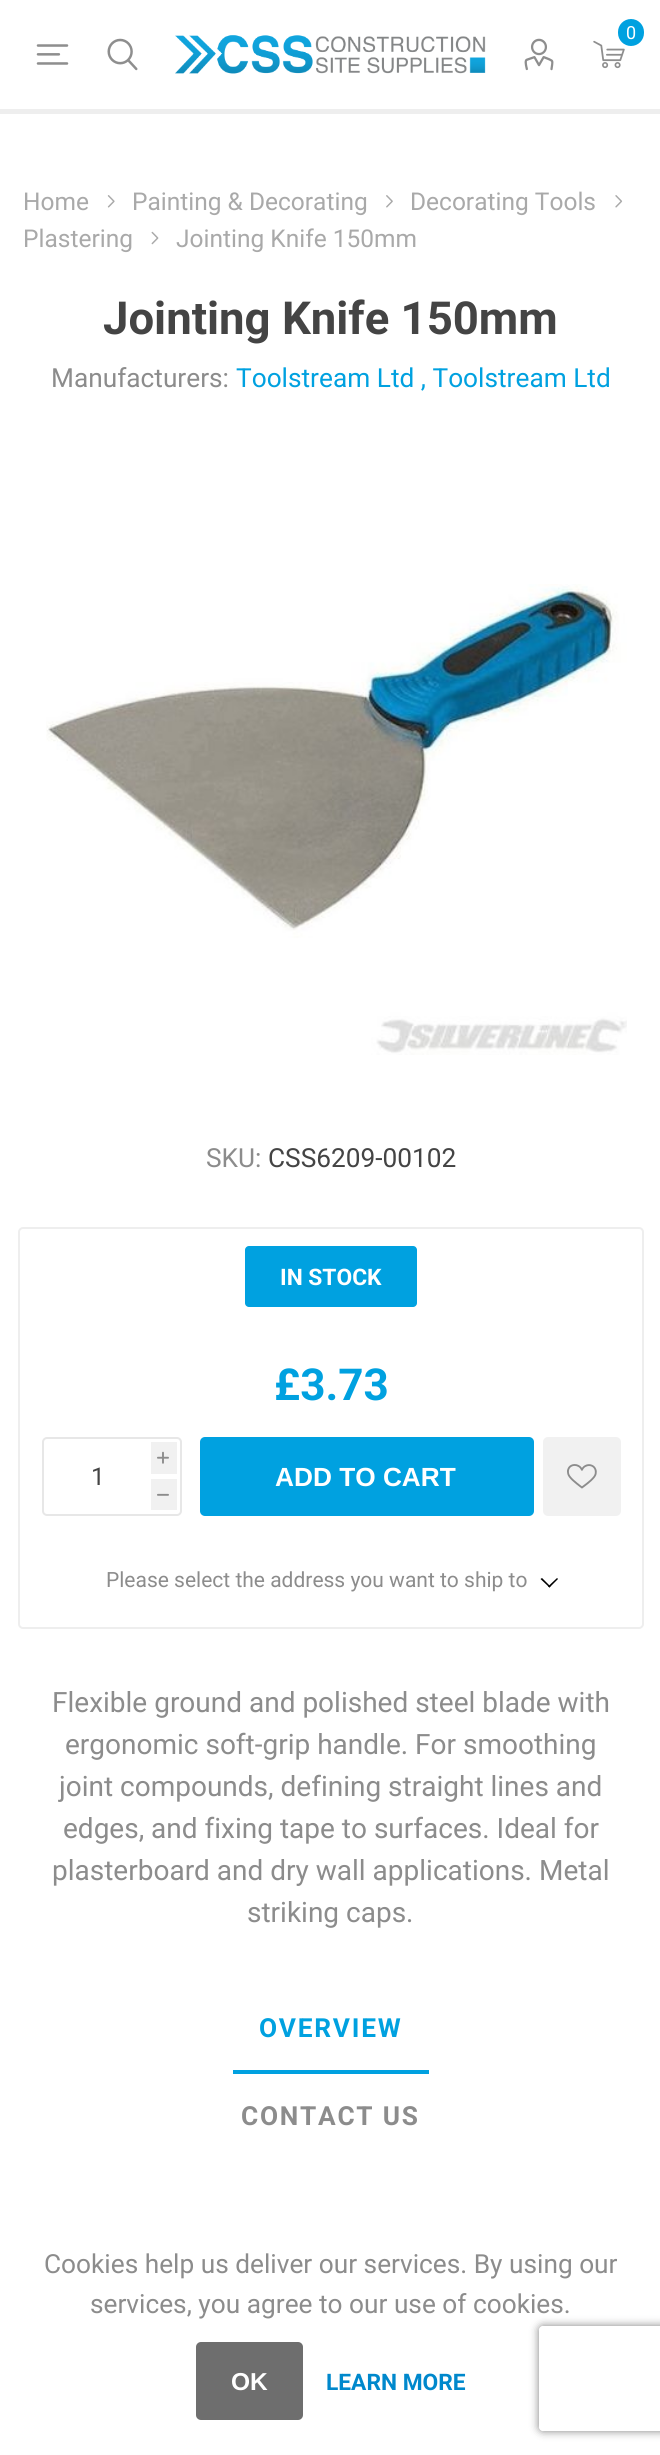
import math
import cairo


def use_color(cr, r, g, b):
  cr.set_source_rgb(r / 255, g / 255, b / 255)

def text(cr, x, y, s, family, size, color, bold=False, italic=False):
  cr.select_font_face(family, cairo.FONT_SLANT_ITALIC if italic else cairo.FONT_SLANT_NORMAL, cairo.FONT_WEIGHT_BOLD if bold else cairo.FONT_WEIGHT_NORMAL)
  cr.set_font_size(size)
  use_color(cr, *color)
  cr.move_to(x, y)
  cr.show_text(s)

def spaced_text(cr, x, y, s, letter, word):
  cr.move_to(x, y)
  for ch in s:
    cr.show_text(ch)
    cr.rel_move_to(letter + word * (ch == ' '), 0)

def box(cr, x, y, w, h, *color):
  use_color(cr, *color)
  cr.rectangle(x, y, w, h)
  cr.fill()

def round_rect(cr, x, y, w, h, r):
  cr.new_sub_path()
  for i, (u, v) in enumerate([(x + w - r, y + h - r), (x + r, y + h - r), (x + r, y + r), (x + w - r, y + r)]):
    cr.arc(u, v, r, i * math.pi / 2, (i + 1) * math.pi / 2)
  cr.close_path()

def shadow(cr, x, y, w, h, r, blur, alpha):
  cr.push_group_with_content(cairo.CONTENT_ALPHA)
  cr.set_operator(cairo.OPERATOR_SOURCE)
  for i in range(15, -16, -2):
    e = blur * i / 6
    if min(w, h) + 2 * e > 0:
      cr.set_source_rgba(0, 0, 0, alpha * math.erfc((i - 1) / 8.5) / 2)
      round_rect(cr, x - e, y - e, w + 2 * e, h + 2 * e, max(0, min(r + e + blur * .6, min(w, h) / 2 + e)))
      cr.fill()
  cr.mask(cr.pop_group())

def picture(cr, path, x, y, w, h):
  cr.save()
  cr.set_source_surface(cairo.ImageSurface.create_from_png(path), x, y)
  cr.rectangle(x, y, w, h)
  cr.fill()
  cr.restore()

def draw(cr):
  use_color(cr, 255, 255, 255)
  cr.paint()
  box(cr, 0, 109, 660, 5, 238, 238, 238)
  picture(cr, "img_01.png", 593, 40, 32, 29)
  use_color(cr, 0, 161, 224)
  round_rect(cr, 618, 19, 26, 27, 13)
  cr.fill()
  picture(cr, "img_02.png", 36, 44, 33, 21)
  picture(cr, "img_03.png", 107, 38, 31, 33)
  picture(cr, "img_04.png", 175, 35, 311, 39)
  picture(cr, "img_05.png", 524, 38, 30, 33)
  picture(cr, "img_06.png", 107, 195, 8, 13)
  picture(cr, "img_07.png", 386, 195, 7, 13)
  picture(cr, "img_08.png", 615, 195, 8, 13)
  picture(cr, "img_09.png", 151, 231, 8, 14)
  picture(cr, "img_10.png", 46, 584, 581, 471)
  round_rect(cr, 19, 1228, 624, 400, 4)
  use_color(cr, 238, 238, 238)
  cr.stroke()
  use_color(cr, 0, 161, 224)
  round_rect(cr, 245, 1246, 172, 61, 4)
  cr.fill()
  round_rect(cr, 43, 1438, 138, 77, 4)
  use_color(cr, 231, 231, 231)
  cr.stroke()
  box(cr, 151, 1442, 26, 32, 241, 241, 241)
  box(cr, 151, 1479, 26, 31, 241, 241, 241)
  use_color(cr, 0, 161, 224)
  round_rect(cr, 200, 1437, 334, 79, 5)
  cr.fill()
  use_color(cr, 241, 241, 241)
  round_rect(cr, 543, 1437, 78, 79, 5)
  cr.fill()
  picture(cr, "img_11.png", 567, 1464, 30, 25)
  use_color(cr, 0, 0, 0)
  cr.new_path()
  cr.move_to(557, 1578)
  cr.line_to(558, 1579)
  cr.line_to(549.5, 1587.5)
  cr.line_to(548, 1586.5)
  cr.close_path()
  cr.fill()
  cr.new_path()
  cr.move_to(542, 1578)
  cr.line_to(550.5, 1586.5)
  cr.line_to(549.5, 1587.5)
  cr.line_to(540.5, 1579)
  cr.close_path()
  cr.fill()
  box(cr, 233, 2070, 196, 4, 0, 161, 224)
  use_color(cr, 110, 110, 110)
  round_rect(cr, 196, 2342, 107, 78, 5)
  cr.fill()
  cr.save()
  cr.set_fill_rule(cairo.FILL_RULE_EVEN_ODD)
  cr.new_path()
  cr.move_to(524, 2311)
  cr.line_to(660, 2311)
  cr.line_to(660, 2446)
  cr.line_to(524, 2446)
  cr.close_path()
  cr.move_to(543, 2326)
  cr.line_to(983, 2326)
  cr.curve_to(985, 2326, 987, 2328, 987, 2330)
  cr.line_to(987, 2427)
  cr.curve_to(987, 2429, 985, 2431, 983, 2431)
  cr.line_to(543, 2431)
  cr.curve_to(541, 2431, 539, 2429, 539, 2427)
  cr.line_to(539, 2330)
  cr.curve_to(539, 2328, 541, 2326, 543, 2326)
  cr.close_path()
  cr.clip()
  use_color(cr, 128, 128, 128)
  shadow(cr, 539, 2326, 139, 105, 4, 4.5, 1)
  cr.restore()
  text(cr, 626, 39, "0", "Roboto", 18, (255, 255, 255))
  text(cr, 23, 210, "Home", "Roboto", 24.5, (169, 169, 169))
  text(cr, 132, 210, "Painting & Decorating", "Roboto", 24.5, (169, 169, 169))
  text(cr, 410, 210, "Decorating Tools", "Roboto", 24.5, (169, 169, 169))
  text(cr, 23, 247, "Plastering", "Roboto", 24.5, (169, 169, 169))
  text(cr, 176, 247, "Jointing Knife 150mm", "Roboto", 24.5, (169, 169, 169))
  text(cr, 103, 334, "Jointing Knife 150mm", "Roboto", 45.5, (68, 68, 68), bold=True)
  text(cr, 51, 387, "Manufacturers:", "Roboto", 26.25, (140, 140, 140))
  text(cr, 236, 387, "Toolstream Ltd , Toolstream Ltd", "Roboto", 26.25, (0, 161, 224))
  text(cr, 206, 1167, "SKU:", "Roboto", 26.25, (140, 140, 140))
  text(cr, 268, 1167, "CSS6209-00102", "Roboto", 26.25, (68, 68, 68))
  text(cr, 280, 1285, "IN STOCK", "Roboto", 22.75, (255, 255, 255), bold=True)
  text(cr, 274, 1400, "£3.73", "Roboto", 44, (0, 161, 224), bold=True)
  text(cr, 157, 1463, "i", "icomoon", 12, (140, 140, 140))
  text(cr, 91, 1485, "1", "Roboto", 24.5, (68, 68, 68))
  text(cr, 157, 1500, "h", "icomoon", 12, (140, 140, 140))
  text(cr, 275, 1486, "ADD TO CART", "Liberation Sans", 26.25, (255, 255, 255), bold=True)
  text(cr, 106, 1587, "Please select the address you want to ship to", "Roboto", 21, (140, 140, 140))
  text(cr, 52, 1712, "Flexible ground and polished steel blade with", "Roboto", 28, (140, 140, 140))
  text(cr, 65, 1754, "ergonomic soft-grip handle. For smoothing", "Roboto", 28, (140, 140, 140))
  text(cr, 59, 1796, "joint compounds, defining straight lines and", "Roboto", 28, (140, 140, 140))
  text(cr, 63, 1838, "edges, and fixing tape to surfaces. Ideal for", "Roboto", 28, (140, 140, 140))
  text(cr, 52, 1880, "plasterboard and dry wall applications. Metal", "Roboto", 28, (140, 140, 140))
  text(cr, 247, 1922, "striking caps.", "Roboto", 28, (140, 140, 140))
  cr.select_font_face("Roboto", cairo.FONT_SLANT_NORMAL, cairo.FONT_WEIGHT_BOLD)
  cr.set_font_size(26.25)
  use_color(cr, 0, 161, 224)
  spaced_text(cr, 259, 2037, "OVERVIEW", 1.75, 0)
  use_color(cr, 140, 140, 140)
  spaced_text(cr, 241, 2125, "CONTACT US", 1.75, 0)
  text(cr, 44, 2273, "Cookies help us deliver our services. By using our", "Roboto", 26.25, (140, 140, 140))
  text(cr, 90, 2313, "services, you agree to our use of cookies.", "Roboto", 26.25, (140, 140, 140))
  text(cr, 231, 2390, "OK", "Liberation Sans", 24.5, (255, 255, 255), bold=True)
  text(cr, 326, 2390, "LEARN MORE", "Roboto", 22.75, (0, 136, 204), bold=True)


surface = cairo.ImageSurface(cairo.FORMAT_RGB24, 660, 2455)
cr = cairo.Context(surface)
options = cairo.FontOptions()
options.set_hint_metrics(cairo.HINT_METRICS_OFF)
options.set_hint_style(cairo.HINT_STYLE_NONE)
cr.set_font_options(options)
cr.set_miter_limit(4)
draw(cr)
surface.write_to_png("out.png")
